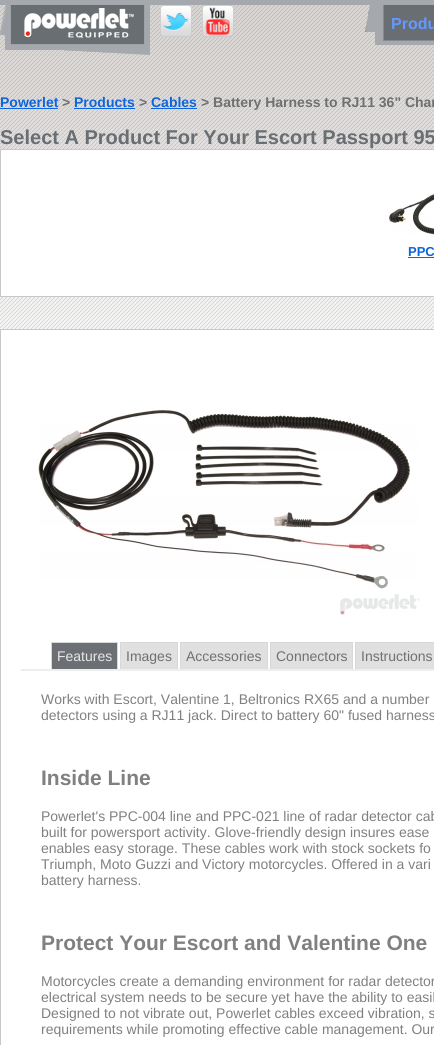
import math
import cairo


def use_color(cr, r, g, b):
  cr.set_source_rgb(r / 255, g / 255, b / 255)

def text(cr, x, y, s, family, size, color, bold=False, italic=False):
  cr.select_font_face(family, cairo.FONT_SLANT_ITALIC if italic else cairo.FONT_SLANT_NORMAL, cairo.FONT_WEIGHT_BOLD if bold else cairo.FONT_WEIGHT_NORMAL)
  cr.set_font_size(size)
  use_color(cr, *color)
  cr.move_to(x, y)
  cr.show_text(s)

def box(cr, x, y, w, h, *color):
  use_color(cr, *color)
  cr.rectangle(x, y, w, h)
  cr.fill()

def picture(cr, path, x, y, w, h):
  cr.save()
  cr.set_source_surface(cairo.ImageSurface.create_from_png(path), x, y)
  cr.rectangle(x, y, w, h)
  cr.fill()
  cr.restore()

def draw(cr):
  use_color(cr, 255, 255, 255)
  cr.paint()
  picture(cr, "img_01.png", 0, 0, 434, 329)
  picture(cr, "img_02.png", 0, 5, 150, 50)
  picture(cr, "img_03.png", 160, 5, 32, 32)
  picture(cr, "img_04.png", 202, 5, 32, 32)
  picture(cr, "img_05.png", 365, 5, 69, 40)
  box(cr, 0, 108, 58, 1, 14, 101, 219)
  box(cr, 74, 108, 61, 1, 14, 101, 219)
  box(cr, 151, 108, 46, 1, 14, 101, 219)
  use_color(cr, 255, 255, 255)
  cr.rectangle(0.5, 149.5, 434, 147)
  cr.fill_preserve()
  use_color(cr, 200, 200, 200)
  cr.set_line_width(1)
  cr.stroke()
  picture(cr, "img_06.png", 389, 194, 45, 41)
  box(cr, 408, 257, 26, 1, 14, 101, 219)
  cr.rectangle(0.5, 329.5, 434, 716)
  use_color(cr, 200, 200, 200)
  cr.stroke()
  picture(cr, "img_07.png", 38, 409, 382, 206)
  box(cr, 51, 642, 67, 1, 216, 216, 216)
  box(cr, 117, 642, 1, 27, 216, 216, 216)
  box(cr, 51, 642, 1, 27, 216, 216, 216)
  box(cr, 52, 643, 65, 26, 108, 111, 116)
  box(cr, 120, 642, 58, 1, 216, 216, 216)
  box(cr, 177, 642, 1, 27, 216, 216, 216)
  box(cr, 120, 642, 1, 27, 216, 216, 216)
  box(cr, 121, 643, 56, 26, 224, 224, 224)
  box(cr, 180, 642, 88, 1, 216, 216, 216)
  box(cr, 267, 642, 1, 27, 216, 216, 216)
  box(cr, 180, 642, 1, 27, 216, 216, 216)
  box(cr, 181, 643, 86, 26, 224, 224, 224)
  box(cr, 270, 642, 83, 1, 216, 216, 216)
  box(cr, 352, 642, 1, 27, 216, 216, 216)
  box(cr, 270, 642, 1, 27, 216, 216, 216)
  box(cr, 271, 643, 81, 26, 224, 224, 224)
  box(cr, 355, 642, 79, 1, 216, 216, 216)
  box(cr, 355, 642, 1, 27, 216, 216, 216)
  box(cr, 356, 643, 78, 26, 224, 224, 224)
  box(cr, 21, 669, 413, 2, 238, 238, 238)
  text(cr, 391, 29, "Produ", "Liberation Sans", 16, (102, 153, 255), bold=True)
  text(cr, 0, 107, "Powerlet", "Liberation Sans", 14, (14, 101, 219), bold=True)
  text(cr, 62, 107, ">", "Liberation Sans", 14, (112, 112, 112), bold=True)
  text(cr, 74, 107, "Products", "Liberation Sans", 14, (14, 101, 219), bold=True)
  text(cr, 139, 107, ">", "Liberation Sans", 14, (112, 112, 112), bold=True)
  text(cr, 151, 107, "Cables", "Liberation Sans", 14, (14, 101, 219), bold=True)
  text(cr, 201, 107, "> Battery Harness to RJ11 36\" Char", "Liberation Sans", 14, (112, 112, 112), bold=True)
  text(cr, 0, 144, "Select A Product For Your Escort Passport 95", "Liberation Sans", 20, (104, 110, 114), bold=True)
  text(cr, 408, 256, "PPC", "Liberation Sans", 13, (14, 101, 219), bold=True)
  text(cr, 57, 661, "Features", "Liberation Sans", 14, (232, 232, 232))
  text(cr, 126, 661, "Images", "Liberation Sans", 14, (112, 112, 112))
  text(cr, 186, 661, "Accessories", "Liberation Sans", 14, (112, 112, 112))
  text(cr, 276, 661, "Connectors", "Liberation Sans", 14, (112, 112, 112))
  text(cr, 361, 661, "Instructions", "Liberation Sans", 14, (112, 112, 112))
  text(cr, 41, 704, "Works with Escort, Valentine 1, Beltronics RX65 and a number", "Liberation Sans", 14, (128, 128, 128))
  text(cr, 41, 720, "detectors using a RJ11 jack. Direct to battery 60\" fused harness", "Liberation Sans", 14, (128, 128, 128))
  text(cr, 41, 785, "Inside Line", "Liberation Sans", 21, (128, 128, 128), bold=True)
  text(cr, 41, 821, "Powerlet's PPC-004 line and PPC-021 line of radar detector cab", "Liberation Sans", 14, (128, 128, 128))
  text(cr, 41, 837, "built for powersport activity. Glove-friendly design insures ease", "Liberation Sans", 14, (128, 128, 128))
  text(cr, 41, 853, "enables easy storage. These cables work with stock sockets fo", "Liberation Sans", 14, (128, 128, 128))
  text(cr, 41, 869, "Triumph, Moto Guzzi and Victory motorcycles. Offered in a vari", "Liberation Sans", 14, (128, 128, 128))
  text(cr, 41, 885, "battery harness.", "Liberation Sans", 14, (128, 128, 128))
  text(cr, 41, 950, "Protect Your Escort and Valentine One", "Liberation Sans", 21, (128, 128, 128), bold=True)
  text(cr, 41, 986, "Motorcycles create a demanding environment for radar detector", "Liberation Sans", 14, (128, 128, 128))
  text(cr, 41, 1002, "electrical system needs to be secure yet have the ability to easil", "Liberation Sans", 14, (128, 128, 128))
  text(cr, 41, 1018, "Designed to not vibrate out, Powerlet cables exceed vibration, s", "Liberation Sans", 14, (128, 128, 128))
  text(cr, 41, 1034, "requirements while promoting effective cable management. Our", "Liberation Sans", 14, (128, 128, 128))


surface = cairo.ImageSurface(cairo.FORMAT_RGB24, 434, 1045)
cr = cairo.Context(surface)
options = cairo.FontOptions()
options.set_hint_metrics(cairo.HINT_METRICS_OFF)
options.set_hint_style(cairo.HINT_STYLE_NONE)
cr.set_font_options(options)
cr.set_miter_limit(4)
draw(cr)
surface.write_to_png("out.png")
